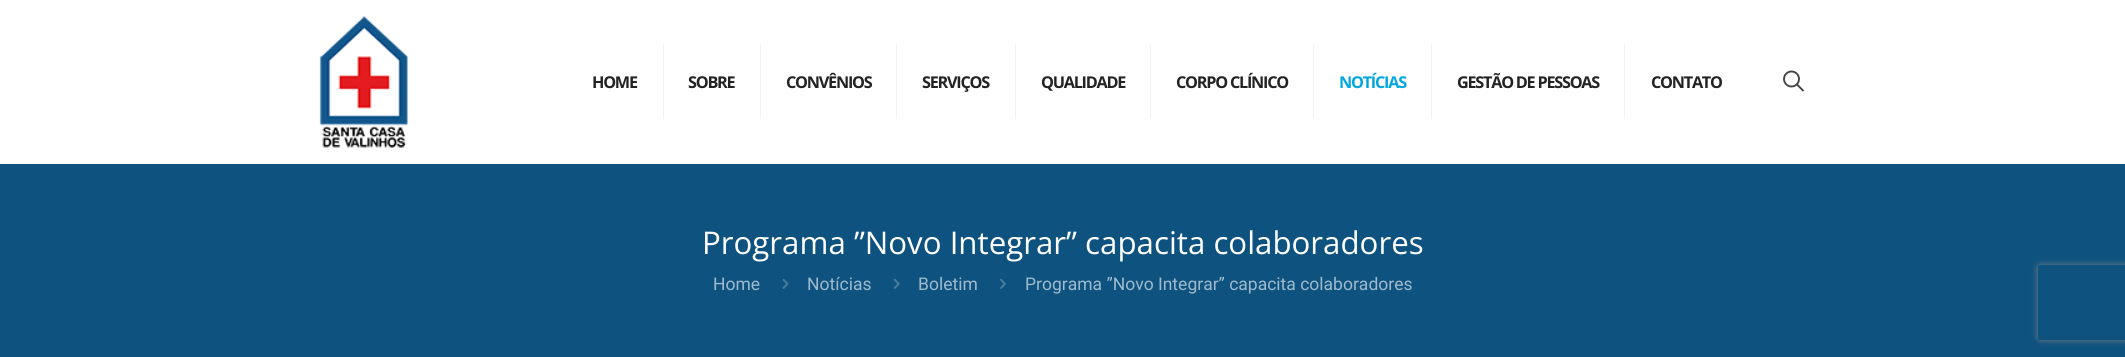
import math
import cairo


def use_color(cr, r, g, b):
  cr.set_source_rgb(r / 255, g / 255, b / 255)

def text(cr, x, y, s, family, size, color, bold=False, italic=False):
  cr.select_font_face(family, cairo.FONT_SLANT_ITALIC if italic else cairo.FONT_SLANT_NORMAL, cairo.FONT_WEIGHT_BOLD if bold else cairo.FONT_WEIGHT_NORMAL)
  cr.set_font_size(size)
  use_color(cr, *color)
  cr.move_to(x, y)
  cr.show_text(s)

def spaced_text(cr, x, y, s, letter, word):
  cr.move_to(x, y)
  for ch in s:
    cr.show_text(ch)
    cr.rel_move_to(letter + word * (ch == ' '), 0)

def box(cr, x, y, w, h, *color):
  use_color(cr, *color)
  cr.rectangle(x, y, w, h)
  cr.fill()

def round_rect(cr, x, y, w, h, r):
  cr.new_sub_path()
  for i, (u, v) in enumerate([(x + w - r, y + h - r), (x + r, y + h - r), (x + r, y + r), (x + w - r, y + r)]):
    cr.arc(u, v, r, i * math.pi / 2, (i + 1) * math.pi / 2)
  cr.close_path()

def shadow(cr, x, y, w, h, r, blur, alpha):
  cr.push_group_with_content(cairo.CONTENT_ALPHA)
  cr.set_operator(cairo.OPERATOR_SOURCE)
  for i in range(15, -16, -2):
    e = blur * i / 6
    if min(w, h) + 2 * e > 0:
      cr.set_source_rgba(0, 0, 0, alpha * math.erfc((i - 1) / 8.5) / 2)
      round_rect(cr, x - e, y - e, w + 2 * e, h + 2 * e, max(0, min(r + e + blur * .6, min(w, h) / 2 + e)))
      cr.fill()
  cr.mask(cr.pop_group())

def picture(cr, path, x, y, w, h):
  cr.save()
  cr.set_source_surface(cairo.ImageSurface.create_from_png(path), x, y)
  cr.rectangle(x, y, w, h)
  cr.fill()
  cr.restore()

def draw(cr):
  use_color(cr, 14, 82, 127)
  cr.paint()
  box(cr, 0, 0, 2125, 164, 255, 255, 255)
  picture(cr, "img_01.png", 319, 16, 89, 132)
  box(cr, 663, 44, 1, 75, 242, 242, 242)
  box(cr, 760, 44, 1, 75, 242, 242, 242)
  box(cr, 896, 44, 1, 75, 242, 242, 242)
  box(cr, 1015, 44, 1, 75, 242, 242, 242)
  box(cr, 1150, 44, 1, 75, 242, 242, 242)
  box(cr, 1313, 44, 1, 75, 242, 242, 242)
  box(cr, 1431, 44, 1, 75, 242, 242, 242)
  box(cr, 1624, 44, 1, 75, 242, 242, 242)
  cr.arc(1791.5, 79, 7.5, 0, 2 * math.pi)
  use_color(cr, 68, 68, 68)
  cr.set_line_width(1.9)
  cr.stroke()
  cr.new_path()
  cr.move_to(1797, 84.5)
  cr.line_to(1803.5, 91)
  cr.stroke()
  picture(cr, "img_02.png", 782, 278, 7, 11)
  picture(cr, "img_03.png", 893, 278, 7, 11)
  picture(cr, "img_04.png", 1000, 278, 6, 11)
  cr.save()
  cr.set_fill_rule(cairo.FILL_RULE_EVEN_ODD)
  cr.new_path()
  cr.move_to(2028, 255)
  cr.line_to(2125, 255)
  cr.line_to(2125, 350)
  cr.line_to(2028, 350)
  cr.close_path()
  cr.move_to(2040.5, 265)
  cr.line_to(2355.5, 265)
  cr.curve_to(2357, 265, 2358, 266, 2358, 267.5)
  cr.line_to(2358, 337.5)
  cr.curve_to(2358, 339, 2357, 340, 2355.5, 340)
  cr.line_to(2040.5, 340)
  cr.curve_to(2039, 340, 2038, 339, 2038, 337.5)
  cr.line_to(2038, 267.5)
  cr.curve_to(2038, 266, 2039, 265, 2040.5, 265)
  cr.close_path()
  cr.clip()
  use_color(cr, 128, 128, 128)
  shadow(cr, 2038, 265, 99, 75, 2.5, 3, 1)
  cr.restore()
  cr.select_font_face("Open Sans", cairo.FONT_SLANT_NORMAL, cairo.FONT_WEIGHT_BOLD)
  cr.set_font_size(16.25)
  use_color(cr, 35, 35, 35)
  spaced_text(cr, 592, 88, "HOME", -1.25, 0)
  spaced_text(cr, 688, 88, "SOBRE", -1.25, 0)
  spaced_text(cr, 786, 88, "CONVÊNIOS", -1.25, 0)
  spaced_text(cr, 922, 88, "SERVIÇOS", -1.25, 0)
  spaced_text(cr, 1041, 88, "QUALIDADE", -1.25, 0)
  spaced_text(cr, 1176, 88, "CORPO CLÍNICO", -1.25, 0)
  use_color(cr, 2, 167, 223)
  spaced_text(cr, 1339, 88, "NOTÍCIAS", -1.25, 0)
  use_color(cr, 35, 35, 35)
  spaced_text(cr, 1457, 88, "GESTÃO DE PESSOAS", -1.25, 0)
  spaced_text(cr, 1651, 88, "CONTATO", -1.25, 0)
  text(cr, 702, 254, "Programa ”Novo Integrar” capacita colaboradores", "Open Sans", 31.25, (255, 255, 255))
  text(cr, 713, 290, "Home", "Roboto", 17.5, (159, 186, 204))
  text(cr, 807, 290, "Notícias", "Roboto", 17.5, (159, 186, 204))
  text(cr, 918, 290, "Boletim", "Roboto", 17.5, (159, 186, 204))
  text(cr, 1025, 290, "Programa ”Novo Integrar” capacita colaboradores", "Roboto", 17.5, (159, 186, 204))


surface = cairo.ImageSurface(cairo.FORMAT_RGB24, 2125, 357)
cr = cairo.Context(surface)
options = cairo.FontOptions()
options.set_hint_metrics(cairo.HINT_METRICS_OFF)
options.set_hint_style(cairo.HINT_STYLE_NONE)
cr.set_font_options(options)
cr.set_miter_limit(4)
draw(cr)
surface.write_to_png("out.png")
